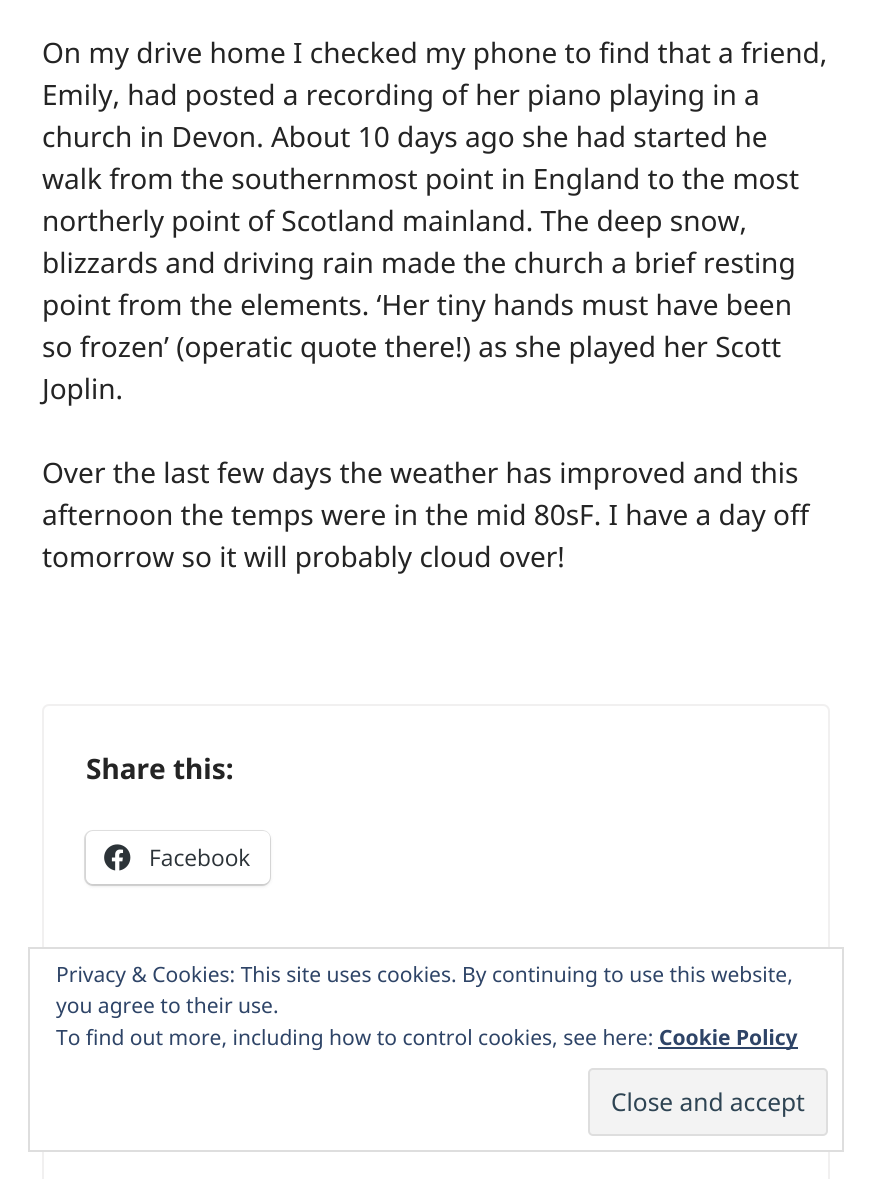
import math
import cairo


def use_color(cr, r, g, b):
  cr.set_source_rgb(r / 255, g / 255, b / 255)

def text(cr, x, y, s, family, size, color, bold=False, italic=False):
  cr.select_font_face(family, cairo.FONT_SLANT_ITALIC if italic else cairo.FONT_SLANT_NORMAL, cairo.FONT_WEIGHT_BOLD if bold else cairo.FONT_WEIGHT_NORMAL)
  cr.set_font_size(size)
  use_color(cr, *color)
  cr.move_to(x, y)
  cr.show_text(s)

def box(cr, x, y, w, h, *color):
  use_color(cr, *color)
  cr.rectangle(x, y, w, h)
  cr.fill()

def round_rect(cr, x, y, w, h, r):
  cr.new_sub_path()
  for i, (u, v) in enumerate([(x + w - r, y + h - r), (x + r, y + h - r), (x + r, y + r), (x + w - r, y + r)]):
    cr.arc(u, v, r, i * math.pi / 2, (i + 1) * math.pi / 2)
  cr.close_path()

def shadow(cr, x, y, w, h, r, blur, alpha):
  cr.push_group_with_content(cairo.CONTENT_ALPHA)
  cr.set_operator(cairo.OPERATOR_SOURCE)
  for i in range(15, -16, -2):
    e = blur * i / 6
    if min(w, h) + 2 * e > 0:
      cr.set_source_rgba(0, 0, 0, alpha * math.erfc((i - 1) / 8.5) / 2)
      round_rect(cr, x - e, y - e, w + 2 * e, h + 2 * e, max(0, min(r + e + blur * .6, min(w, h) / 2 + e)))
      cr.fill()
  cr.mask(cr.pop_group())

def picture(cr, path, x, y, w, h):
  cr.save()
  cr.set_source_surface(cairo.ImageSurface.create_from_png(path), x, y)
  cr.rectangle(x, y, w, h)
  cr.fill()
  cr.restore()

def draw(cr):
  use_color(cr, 255, 255, 255)
  cr.paint()
  round_rect(cr, 43, 705, 786, 271, 6)
  use_color(cr, 241, 240, 240)
  cr.stroke()
  round_rect(cr, 85, 831, 185, 54, 8)
  use_color(cr, 224, 224, 224)
  cr.stroke()
  use_color(cr, 0, 0, 0)
  shadow(cr, 86, 833, 184, 53, 7, 2, 0.12)
  use_color(cr, 255, 255, 255)
  round_rect(cr, 86, 831, 184, 53, 7)
  cr.fill()
  picture(cr, "img_01.png", 104, 844, 27, 27)
  cr.rectangle(43, 1020, 786, 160)
  use_color(cr, 241, 240, 240)
  cr.stroke()
  box(cr, 42, 949, 788, 201, 255, 255, 255)
  cr.rectangle(29, 948, 814, 203)
  use_color(cr, 222, 222, 222)
  cr.stroke()
  box(cr, 658, 1047, 140, 2, 46, 68, 103)
  use_color(cr, 243, 243, 243)
  round_rect(cr, 589, 1069, 238, 66, 4)
  cr.fill_preserve()
  use_color(cr, 222, 222, 222)
  cr.stroke()
  text(cr, 42, 63, "On my drive home I checked my phone to find that a friend,", "Noto Sans", 28, (36, 36, 36))
  text(cr, 42, 105, "Emily, had posted a recording of her piano playing in a", "Noto Sans", 28, (36, 36, 36))
  text(cr, 42, 147, "church in Devon. About 10 days ago she had started he", "Noto Sans", 28, (36, 36, 36))
  text(cr, 42, 189, "walk from the southernmost point in England to the most", "Noto Sans", 28, (36, 36, 36))
  text(cr, 42, 231, "northerly point of Scotland mainland. The deep snow,", "Noto Sans", 28, (36, 36, 36))
  text(cr, 42, 273, "blizzards and driving rain made the church a brief resting", "Noto Sans", 28, (36, 36, 36))
  text(cr, 42, 315, "point from the elements. ‘Her tiny hands must have been", "Noto Sans", 28, (36, 36, 36))
  text(cr, 42, 357, "so frozen’ (operatic quote there!) as she played her Scott", "Noto Sans", 28, (36, 36, 36))
  text(cr, 42, 399, "Joplin.", "Noto Sans", 28, (36, 36, 36))
  text(cr, 42, 483, "Over the last few days the weather has improved and this", "Noto Sans", 28, (36, 36, 36))
  text(cr, 42, 525, "afternoon the temps were in the mid 80sF. I have a day off", "Noto Sans", 28, (36, 36, 36))
  text(cr, 42, 567, "tomorrow so it will probably cloud over!", "Noto Sans", 28, (36, 36, 36))
  text(cr, 86, 779, "Share this:", "Noto Sans", 28, (36, 36, 36), bold=True)
  text(cr, 149, 866, "Facebook", "Open Sans", 22.75, (44, 51, 56))
  text(cr, 56, 982, "Privacy & Cookies: This site uses cookies. By continuing to use this website,", "Noto Sans", 21, (46, 68, 103))
  text(cr, 56, 1013, "you agree to their use.", "Noto Sans", 21, (46, 68, 103))
  text(cr, 56, 1045, "To find out more, including how to control cookies, see here:", "Noto Sans", 21, (46, 68, 103))
  text(cr, 659, 1045, "Cookie Policy", "Noto Sans", 21, (46, 68, 103), bold=True)
  text(cr, 611, 1111, "Close and accept", "Noto Sans", 24.5, (46, 68, 83))


surface = cairo.ImageSurface(cairo.FORMAT_RGB24, 871, 1179)
cr = cairo.Context(surface)
options = cairo.FontOptions()
options.set_hint_metrics(cairo.HINT_METRICS_OFF)
options.set_hint_style(cairo.HINT_STYLE_NONE)
cr.set_font_options(options)
cr.set_miter_limit(4)
draw(cr)
surface.write_to_png("out.png")
